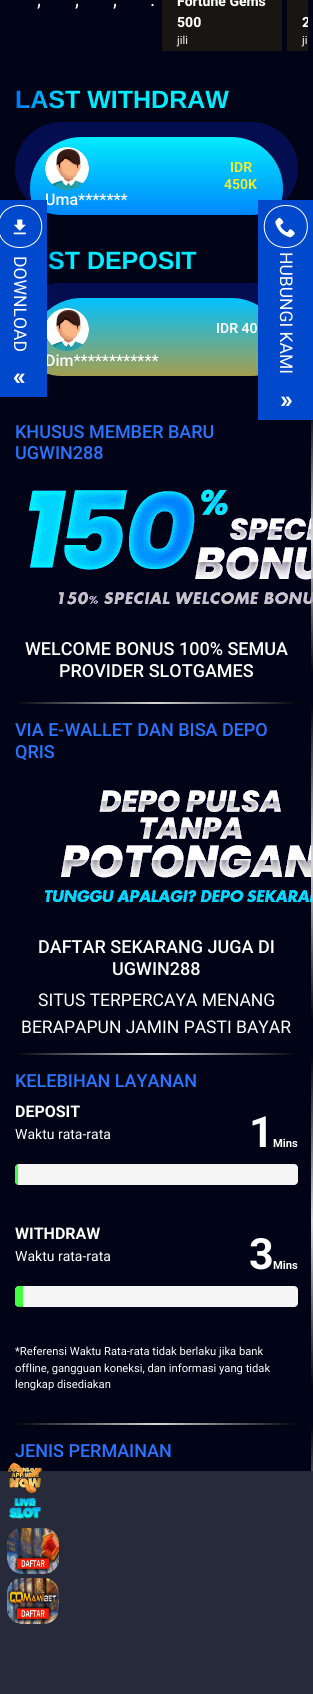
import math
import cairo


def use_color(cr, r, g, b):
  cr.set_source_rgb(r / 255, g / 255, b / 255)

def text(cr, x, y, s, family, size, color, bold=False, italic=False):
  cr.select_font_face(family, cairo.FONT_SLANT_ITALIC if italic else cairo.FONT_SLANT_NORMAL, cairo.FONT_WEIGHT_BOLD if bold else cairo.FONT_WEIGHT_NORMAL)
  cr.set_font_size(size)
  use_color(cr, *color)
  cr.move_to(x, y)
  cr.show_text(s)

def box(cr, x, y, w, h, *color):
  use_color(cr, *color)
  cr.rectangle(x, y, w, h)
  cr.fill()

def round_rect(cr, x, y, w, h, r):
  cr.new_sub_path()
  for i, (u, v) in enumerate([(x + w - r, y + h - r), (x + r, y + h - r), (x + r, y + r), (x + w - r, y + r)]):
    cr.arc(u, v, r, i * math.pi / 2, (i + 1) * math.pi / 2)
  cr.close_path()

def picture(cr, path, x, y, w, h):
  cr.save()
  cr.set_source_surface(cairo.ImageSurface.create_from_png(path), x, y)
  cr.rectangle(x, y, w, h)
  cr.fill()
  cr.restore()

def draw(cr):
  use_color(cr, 1, 4, 23)
  cr.paint()
  box(cr, 162, 0, 120, 51, 23, 22, 19)
  box(cr, 287, 0, 21, 51, 23, 22, 19)
  use_color(cr, 4, 13, 80)
  round_rect(cr, 15, 122, 283, 93, 46.5)
  cr.fill()
  cr.save()
  round_rect(cr, 15, 122, 283, 93, 46.5)
  cr.clip()
  gradient = cairo.LinearGradient(157, 137, 157, 240)
  gradient.add_color_stop_rgba(0, 0.008, 0.922, 0.992, 1)
  gradient.add_color_stop_rgba(1, 0, 0.4, 1, 1)
  cr.set_source(gradient)
  round_rect(cr, 30, 137, 253, 103, 51.5)
  cr.fill()
  cr.restore()
  picture(cr, "img_01.png", 45, 147, 44, 43)
  round_rect(cr, 15, 283, 283, 93, 46.5)
  cr.fill()
  cr.save()
  round_rect(cr, 15, 283, 283, 93, 46.5)
  cr.clip()
  gradient = cairo.LinearGradient(157, 298, 157, 401)
  gradient.add_color_stop_rgba(0, 0.004, 0.761, 1, 1)
  gradient.add_color_stop_rgba(1, 0.847, 0.573, 0.086, 1)
  cr.set_source(gradient)
  round_rect(cr, 30, 298, 253, 103, 51.5)
  cr.fill()
  cr.restore()
  picture(cr, "img_02.png", 47, 308, 42, 43)
  picture(cr, "img_04.png", 29, 489, 284, 116)
  picture(cr, "img_03.png", 311, 420, 2, 254)
  picture(cr, "img_05.png", 15, 702, 282, 2)
  picture(cr, "img_07.png", 45, 790, 268, 112)
  picture(cr, "img_06.png", 311, 704, 2, 316)
  picture(cr, "img_08.png", 15, 1053, 282, 2)
  picture(cr, "img_09.png", 311, 1055, 2, 333)
  use_color(cr, 245, 245, 245)
  round_rect(cr, 15, 1164, 283, 21, 4)
  cr.fill()
  cr.save()
  round_rect(cr, 15, 1164, 283, 21, 4)
  cr.clip()
  box(cr, 15, 1164, 3, 21, 64, 254, 65)
  box(cr, 15, 1184, 3, 1, 83, 191, 85)
  cr.restore()
  round_rect(cr, 15, 1286, 283, 21, 4)
  cr.fill()
  use_color(cr, 64, 254, 65)
  cr.new_path()
  cr.move_to(19, 1286)
  cr.line_to(23, 1286)
  cr.line_to(23, 1307)
  cr.line_to(19, 1307)
  cr.curve_to(17, 1307, 15, 1305, 15, 1303)
  cr.line_to(15, 1290)
  cr.curve_to(15, 1288, 17, 1286, 19, 1286)
  cr.close_path()
  cr.fill()
  cr.set_source_rgba(0, 0, 0, 0.15)
  cr.rectangle(15, 1306, 8, 1)
  cr.fill()
  picture(cr, "img_10.png", 15, 1423, 282, 2)
  picture(cr, "img_11.png", 311, 1425, 2, 46)
  box(cr, 0, 1471, 313, 223, 39, 42, 58)
  box(cr, 258, 200, 55, 220, 0, 73, 204)
  cr.new_path()
  cr.move_to(286, 205.5)
  cr.curve_to(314.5, 205.5, 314.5, 247.5, 286, 247.5)
  cr.curve_to(257, 247.5, 257, 205.5, 286, 205.5)
  cr.close_path()
  use_color(cr, 255, 255, 255)
  cr.set_line_width(1)
  cr.stroke()
  picture(cr, "img_14.png", 275, 217, 20, 21)
  picture(cr, "img_15.png", 281, 396, 11, 10)
  picture(cr, "img_16.png", 8, 1462, 34, 31)
  picture(cr, "img_17.png", 9, 1498, 33, 21)
  picture(cr, "img_18.png", 7, 1528, 52, 46)
  picture(cr, "img_19.png", 7, 1578, 52, 46)
  text(cr, 37, 6, ",", "Roboto", 20, (255, 255, 255))
  text(cr, 75, 6, ",", "Roboto", 20, (255, 255, 255))
  text(cr, 113, 6, ",", "Roboto", 20, (255, 255, 255))
  text(cr, 150, 6, ".", "Roboto", 20, (255, 255, 255))
  text(cr, 177, 6, "Fortune Gems", "Roboto ExtraBold", 14, (255, 255, 255))
  text(cr, 177, 27, "500", "Roboto ExtraBold", 14, (255, 255, 255))
  text(cr, 177, 44, "jili", "Roboto", 11.2, (255, 255, 255))
  cr.save()
  cr.rectangle(302, 0, 6, 33)
  cr.clip()
  text(cr, 302, 27, "2", "Roboto ExtraBold", 14, (255, 255, 255))
  cr.restore()
  text(cr, 302, 44, "ji", "Roboto", 11.2, (255, 255, 255))
  cr.select_font_face("Liberation Sans", cairo.FONT_SLANT_NORMAL, cairo.FONT_WEIGHT_BOLD)
  cr.set_font_size(25)
  gradient = cairo.LinearGradient(15, 99, 298, 99)
  gradient.add_color_stop_rgba(0, 0, 0.459, 0.988, 1)
  gradient.add_color_stop_rgba(0.2, 0.008, 0.922, 1, 1)
  cr.set_source(gradient)
  cr.move_to(15, 108)
  cr.show_text("LAST WITHDRAW")
  text(cr, 230, 172, "IDR", "Roboto SemiBold", 14, (249, 237, 42))
  text(cr, 224, 189, "450K", "Roboto SemiBold", 14, (249, 237, 42))
  text(cr, 45, 205, "Uma*******", "Roboto Medium", 16, (255, 255, 255))
  cr.select_font_face("Liberation Sans", cairo.FONT_SLANT_NORMAL, cairo.FONT_WEIGHT_BOLD)
  cr.set_font_size(25)
  gradient = cairo.LinearGradient(15, 260, 298, 260)
  gradient.add_color_stop_rgba(0, 0, 0.459, 0.988, 1)
  gradient.add_color_stop_rgba(0.2, 0.008, 0.922, 1, 1)
  cr.set_source(gradient)
  cr.move_to(48, 269)
  cr.show_text("ST DEPOSIT")
  text(cr, 216, 333, "IDR 40", "Roboto SemiBold", 14, (255, 255, 255))
  text(cr, 45, 366, "Dim************", "Roboto Medium", 16, (255, 255, 255))
  text(cr, 15, 438, "KHUSUS MEMBER BARU", "Roboto Medium", 18, (41, 117, 255))
  text(cr, 15, 459, "UGWIN288", "Roboto Medium", 18, (41, 117, 255))
  text(cr, 25, 655, "WELCOME BONUS 100% SEMUA", "Roboto Medium", 18, (255, 255, 255))
  text(cr, 59, 677, "PROVIDER SLOTGAMES", "Roboto Medium", 18, (255, 255, 255))
  text(cr, 15, 736, "VIA E-WALLET DAN BISA DEPO", "Roboto Medium", 18, (41, 117, 255))
  text(cr, 15, 758, "QRIS", "Roboto Medium", 18, (41, 117, 255))
  text(cr, 38, 953, "DAFTAR SEKARANG JUGA DI", "Roboto Medium", 18, (255, 255, 255))
  text(cr, 112, 975, "UGWIN288", "Roboto Medium", 18, (255, 255, 255))
  text(cr, 38, 1006, "SITUS TERPERCAYA MENANG", "Roboto", 17.5, (255, 255, 255))
  text(cr, 21, 1033, "BERAPAPUN JAMIN PASTI BAYAR", "Roboto", 17.5, (255, 255, 255))
  text(cr, 15, 1087, "KELEBIHAN LAYANAN", "Roboto Medium", 18, (41, 117, 255))
  text(cr, 15, 1117, "DEPOSIT", "Roboto", 16, (255, 255, 255), bold=True)
  text(cr, 15, 1139, "Waktu rata-rata", "Roboto", 14, (255, 255, 255))
  text(cr, 249, 1147, "1", "Roboto", 43, (255, 255, 255), bold=True)
  text(cr, 273, 1147, "Mins", "Roboto", 11.2, (255, 255, 255), bold=True)
  text(cr, 15, 1239, "WITHDRAW", "Roboto", 16, (255, 255, 255), bold=True)
  text(cr, 15, 1261, "Waktu rata-rata", "Roboto", 14, (255, 255, 255))
  text(cr, 249, 1269, "3", "Roboto", 43, (255, 255, 255), bold=True)
  text(cr, 273, 1269, "Mins", "Roboto", 11.2, (255, 255, 255), bold=True)
  text(cr, 15, 1355, "*Referensi Waktu Rata-rata tidak berlaku jika bank", "Roboto", 11.2, (255, 255, 255))
  text(cr, 15, 1372, "offline, gangguan koneksi, dan informasi yang tidak", "Roboto", 11.2, (255, 255, 255))
  text(cr, 15, 1388, "lengkap disediakan", "Roboto", 11.2, (255, 255, 255))
  text(cr, 15, 1457, "JENIS PERMAINAN", "Roboto Medium", 18, (41, 117, 255))
  box(cr, 0, 200, 47, 197, 0, 73, 204)
  cr.new_path()
  cr.move_to(20, 205.5)
  cr.curve_to(49, 205.5, 49, 247.5, 20, 247.5)
  cr.curve_to(-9, 247.5, -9, 205.5, 20, 205.5)
  cr.close_path()
  use_color(cr, 255, 255, 255)
  cr.stroke()
  picture(cr, "img_12.png", 13, 219, 13, 16)
  cr.save()
  cr.translate(14, 256)
  cr.rotate(90 * math.pi / 180)
  text(cr, 0, 0, "DOWNLOAD", "Roboto", 17.5, (255, 255, 255))
  cr.restore()
  picture(cr, "img_13.png", 13, 373, 12, 10)
  cr.save()
  cr.translate(280, 252)
  cr.rotate(90 * math.pi / 180)
  text(cr, 0, 0, "HUBUNGI KAMI", "Roboto", 17.5, (255, 255, 255))
  cr.restore()


surface = cairo.ImageSurface(cairo.FORMAT_RGB24, 313, 1694)
cr = cairo.Context(surface)
options = cairo.FontOptions()
options.set_hint_metrics(cairo.HINT_METRICS_OFF)
options.set_hint_style(cairo.HINT_STYLE_NONE)
cr.set_font_options(options)
cr.set_miter_limit(4)
draw(cr)
surface.write_to_png("out.png")
